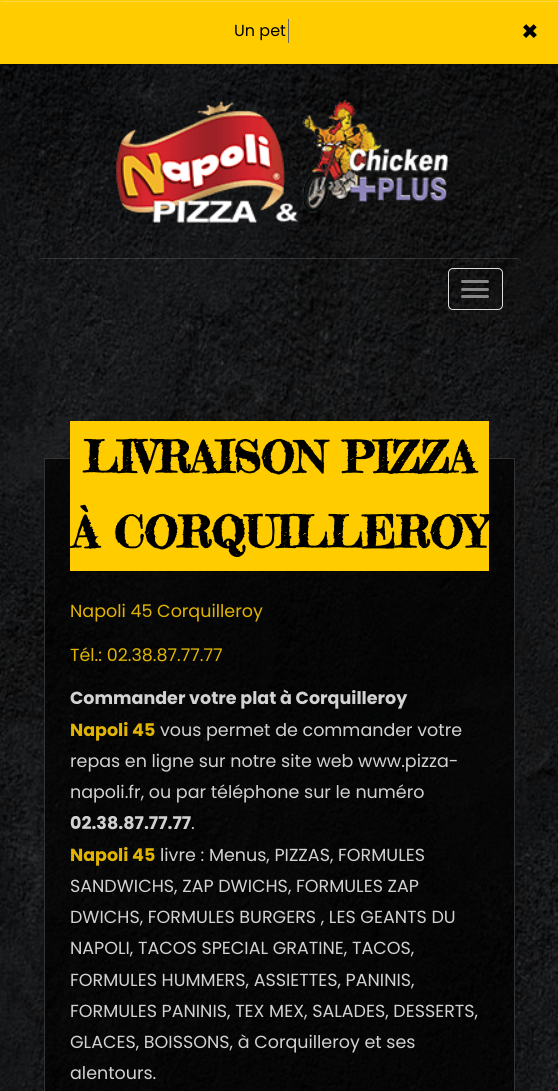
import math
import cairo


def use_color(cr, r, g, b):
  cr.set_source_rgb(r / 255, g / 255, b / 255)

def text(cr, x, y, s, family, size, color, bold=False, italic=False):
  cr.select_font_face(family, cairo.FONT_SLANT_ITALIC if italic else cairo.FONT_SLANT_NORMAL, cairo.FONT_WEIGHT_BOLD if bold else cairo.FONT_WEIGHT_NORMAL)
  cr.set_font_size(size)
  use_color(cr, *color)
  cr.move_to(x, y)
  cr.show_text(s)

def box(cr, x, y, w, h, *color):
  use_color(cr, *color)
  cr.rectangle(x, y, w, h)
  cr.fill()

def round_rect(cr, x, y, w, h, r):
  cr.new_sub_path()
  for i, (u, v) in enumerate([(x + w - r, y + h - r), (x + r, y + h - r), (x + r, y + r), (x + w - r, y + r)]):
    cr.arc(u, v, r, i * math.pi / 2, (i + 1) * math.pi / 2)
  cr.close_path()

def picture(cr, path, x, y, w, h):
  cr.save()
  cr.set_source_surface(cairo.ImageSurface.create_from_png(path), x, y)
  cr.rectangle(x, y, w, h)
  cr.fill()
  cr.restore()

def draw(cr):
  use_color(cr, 255, 255, 255)
  cr.paint()
  picture(cr, "img_01.png", 0, 64, 558, 1027)
  box(cr, 0, 0, 558, 64, 255, 204, 0)
  box(cr, 1, 1, 557, 1, 255, 217, 64)
  box(cr, 288, 19, 1, 24, 102, 102, 102)
  picture(cr, "img_02.png", 116, 99, 332, 124)
  cr.set_source_rgba(1, 1, 1, 0.15)
  cr.new_path()
  cr.move_to(42, 259)
  cr.line_to(516, 259)
  cr.curve_to(519, 259, 521, 261, 521, 264)
  cr.line_to(521, 263)
  cr.curve_to(521, 260, 519, 258, 516, 258)
  cr.line_to(43, 258)
  cr.curve_to(40, 258, 38, 260, 38, 263)
  cr.line_to(38, 264)
  cr.curve_to(38, 261, 40, 259, 42, 259)
  cr.close_path()
  cr.fill()
  round_rect(cr, 448.5, 268.5, 54, 41, 4.5)
  use_color(cr, 221, 221, 221)
  cr.set_line_width(1)
  cr.stroke()
  use_color(cr, 136, 136, 136)
  round_rect(cr, 461, 280, 28, 3, 1.5)
  cr.fill()
  round_rect(cr, 461, 288, 28, 3, 1.5)
  cr.fill()
  round_rect(cr, 461, 295, 28, 3, 1.5)
  cr.fill()
  cr.set_source_rgba(0, 0, 0, 0.7)
  cr.rectangle(44.5, 458.5, 470, 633)
  cr.fill_preserve()
  use_color(cr, 51, 51, 51)
  cr.stroke()
  box(cr, 70, 421, 419, 150, 255, 204, 0)
  text(cr, 234, 36, "Un pet", "Poppins", 16, (0, 0, 0))
  text(cr, 521, 41, "×", "Poppins", 28, (0, 0, 0), bold=True)
  text(cr, 83, 473, "LIVRAISON PIZZA", "Fredericka the Great", 43.75, (0, 0, 0), bold=True)
  text(cr, 72, 548, "À CORQUILLEROY", "Fredericka the Great", 43.75, (0, 0, 0), bold=True)
  text(cr, 70, 617, "Napoli 45 Corquilleroy", "Poppins", 17.5, (225, 180, 1))
  text(cr, 70, 661, "Tél.: 02.38.87.77.77", "Poppins", 17.5, (225, 180, 1))
  text(cr, 70, 704, "Commander votre plat à Corquilleroy", "Poppins", 17.5, (210, 210, 210), bold=True)
  text(cr, 70, 736, "Napoli 45", "Poppins", 17.5, (225, 180, 1), bold=True)
  text(cr, 160, 736, "vous permet de commander votre", "Poppins", 17.5, (210, 210, 210))
  text(cr, 70, 767, "repas en ligne sur notre site web www.pizza-", "Poppins", 17.5, (210, 210, 210))
  text(cr, 70, 798, "napoli.fr, ou par téléphone sur le numéro", "Poppins", 17.5, (210, 210, 210))
  text(cr, 70, 829, "02.38.87.77.77", "Poppins", 17.5, (210, 210, 210), bold=True)
  text(cr, 191, 829, ".", "Poppins", 17.5, (210, 210, 210))
  text(cr, 70, 861, "Napoli 45", "Poppins", 17.5, (225, 180, 1), bold=True)
  text(cr, 160, 861, "livre : Menus, PIZZAS, FORMULES", "Poppins", 17.5, (210, 210, 210))
  text(cr, 70, 892, "SANDWICHS, ZAP DWICHS, FORMULES ZAP", "Poppins", 17.5, (210, 210, 210))
  text(cr, 70, 923, "DWICHS, FORMULES BURGERS , LES GEANTS DU", "Poppins", 17.5, (210, 210, 210))
  text(cr, 70, 954, "NAPOLI, TACOS SPECIAL GRATINE, TACOS,", "Poppins", 17.5, (210, 210, 210))
  text(cr, 70, 986, "FORMULES HUMMERS, ASSIETTES, PANINIS,", "Poppins", 17.5, (210, 210, 210))
  text(cr, 70, 1017, "FORMULES PANINIS, TEX MEX, SALADES, DESSERTS,", "Poppins", 17.5, (210, 210, 210))
  text(cr, 70, 1048, "GLACES, BOISSONS, à Corquilleroy et ses", "Poppins", 17.5, (210, 210, 210))
  text(cr, 70, 1079, "alentours.", "Poppins", 17.5, (210, 210, 210))


surface = cairo.ImageSurface(cairo.FORMAT_RGB24, 558, 1091)
cr = cairo.Context(surface)
options = cairo.FontOptions()
options.set_hint_metrics(cairo.HINT_METRICS_OFF)
options.set_hint_style(cairo.HINT_STYLE_NONE)
cr.set_font_options(options)
cr.set_miter_limit(4)
draw(cr)
surface.write_to_png("out.png")
